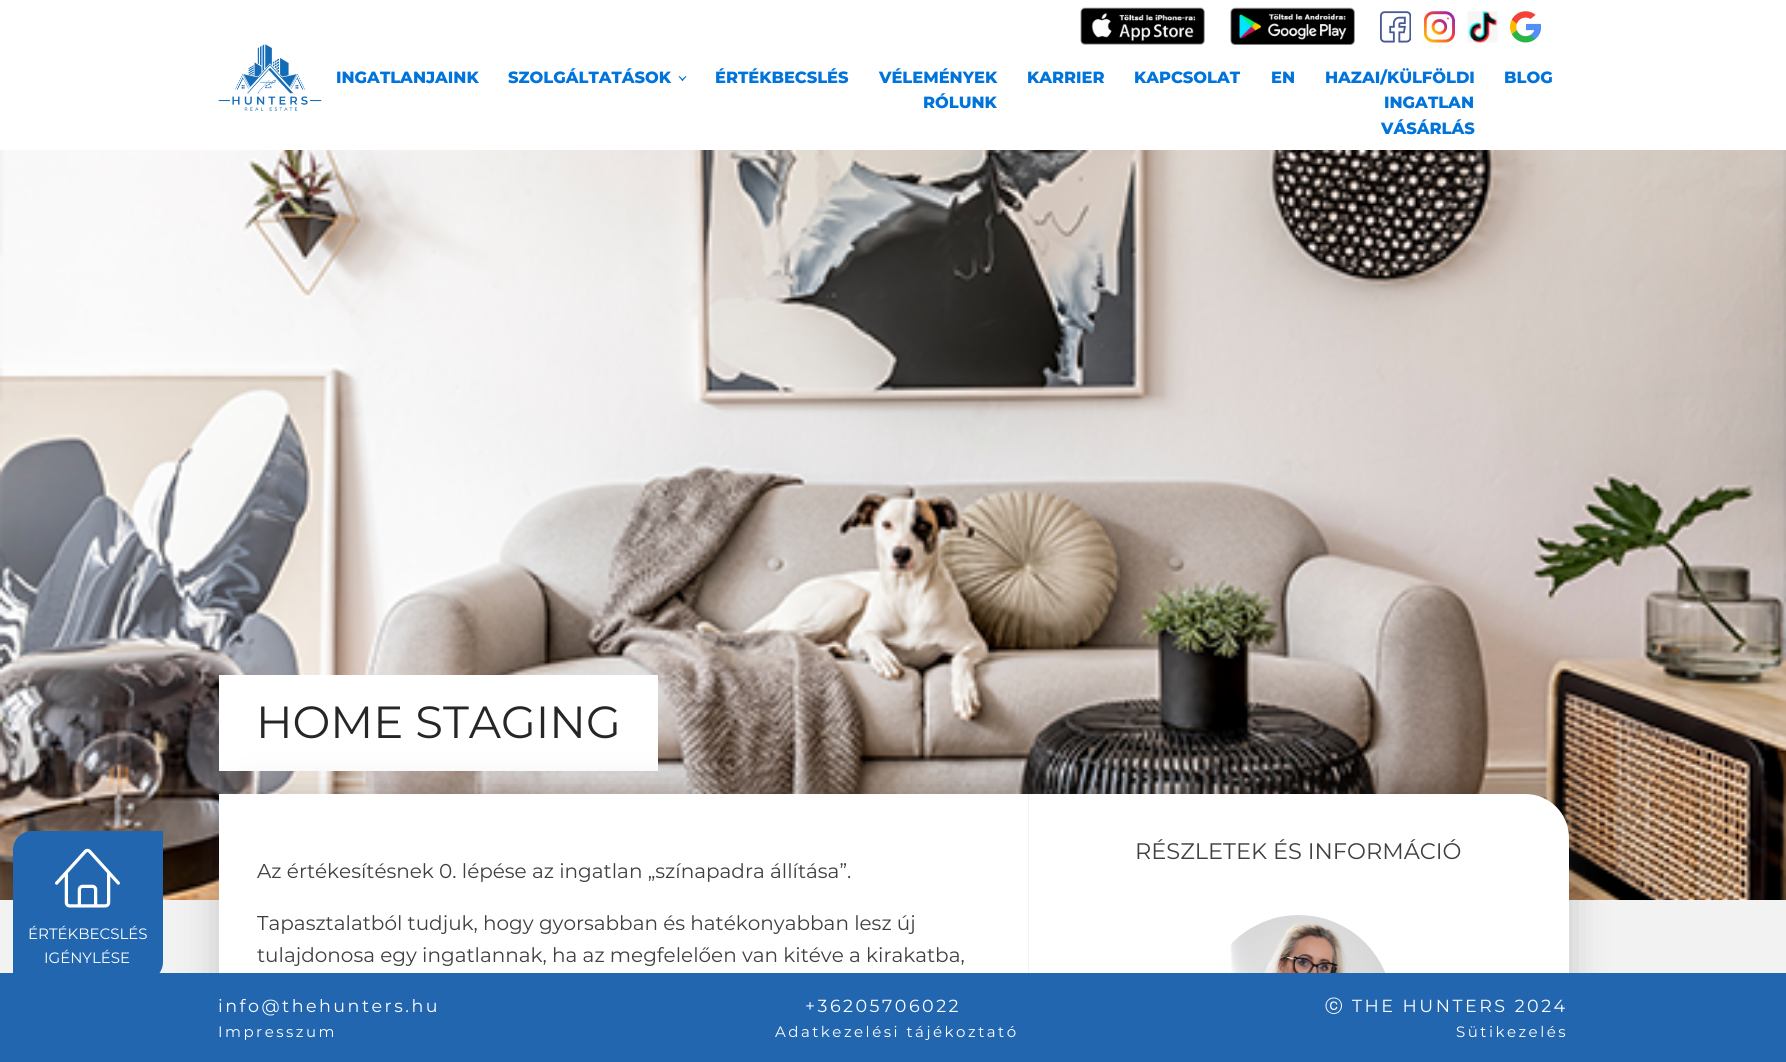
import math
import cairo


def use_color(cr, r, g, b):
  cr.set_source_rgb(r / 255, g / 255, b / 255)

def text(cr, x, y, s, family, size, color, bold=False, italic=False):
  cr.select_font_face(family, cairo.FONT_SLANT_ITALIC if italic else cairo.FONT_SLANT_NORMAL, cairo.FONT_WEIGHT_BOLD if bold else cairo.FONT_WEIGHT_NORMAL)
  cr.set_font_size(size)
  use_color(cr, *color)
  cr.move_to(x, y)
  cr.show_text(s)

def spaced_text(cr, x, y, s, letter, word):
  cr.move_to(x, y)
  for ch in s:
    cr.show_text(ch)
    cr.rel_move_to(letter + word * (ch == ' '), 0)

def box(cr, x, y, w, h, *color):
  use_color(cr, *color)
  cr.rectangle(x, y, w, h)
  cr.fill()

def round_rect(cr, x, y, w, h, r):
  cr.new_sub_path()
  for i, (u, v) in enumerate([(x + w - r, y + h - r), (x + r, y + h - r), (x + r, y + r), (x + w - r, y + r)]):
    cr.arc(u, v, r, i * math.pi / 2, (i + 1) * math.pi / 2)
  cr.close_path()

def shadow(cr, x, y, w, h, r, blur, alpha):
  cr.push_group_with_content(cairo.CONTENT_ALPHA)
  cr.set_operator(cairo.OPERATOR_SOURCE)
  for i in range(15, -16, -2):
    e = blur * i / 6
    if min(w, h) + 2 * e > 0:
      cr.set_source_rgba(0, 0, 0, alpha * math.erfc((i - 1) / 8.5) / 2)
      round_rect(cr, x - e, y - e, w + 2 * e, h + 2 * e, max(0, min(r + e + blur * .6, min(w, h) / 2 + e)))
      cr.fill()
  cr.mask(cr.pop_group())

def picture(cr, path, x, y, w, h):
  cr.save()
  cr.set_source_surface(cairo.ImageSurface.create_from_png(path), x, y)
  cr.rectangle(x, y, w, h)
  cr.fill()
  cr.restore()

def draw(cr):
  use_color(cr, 242, 242, 242)
  cr.paint()
  box(cr, 0, 0, 1786, 150, 255, 255, 255)
  picture(cr, "img_01.png", 218, 44, 104, 67)
  picture(cr, "img_02.png", 1080, 7, 125, 38)
  picture(cr, "img_03.png", 1230, 7, 125, 38)
  picture(cr, "img_04.png", 1380, 11, 31, 32)
  picture(cr, "img_05.png", 1424, 11, 31, 32)
  picture(cr, "img_06.png", 1467, 11, 31, 32)
  picture(cr, "img_07.png", 1510, 11, 31, 32)
  use_color(cr, 0, 116, 219)
  cr.new_path()
  cr.move_to(686.5, 76.5)
  cr.line_to(682.5, 81)
  cr.line_to(681.5, 80)
  cr.line_to(685.5, 76)
  cr.close_path()
  cr.fill()
  cr.new_path()
  cr.move_to(683.5, 80)
  cr.line_to(682.5, 81)
  cr.line_to(678.5, 76.5)
  cr.line_to(679.5, 76)
  cr.close_path()
  cr.fill()
  picture(cr, "img_08.png", 0, 150, 1786, 750)
  box(cr, 219, 675, 439, 96, 255, 255, 255)
  use_color(cr, 81, 81, 81)
  shadow(cr, 219, 794, 1350, 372, 44, 20, 0.28)
  use_color(cr, 255, 255, 255)
  cr.new_path()
  cr.move_to(219, 794)
  cr.line_to(1525, 794)
  cr.curve_to(1549.5, 794, 1569, 813.5, 1569, 838)
  cr.line_to(1569, 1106)
  cr.line_to(263, 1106)
  cr.curve_to(238.5, 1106, 219, 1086.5, 219, 1062)
  cr.close_path()
  cr.fill()
  picture(cr, "img_09.png", 1212, 915, 174, 58)
  box(cr, 1028, 794, 1, 179, 242, 242, 242)
  box(cr, 0, 973, 1786, 89, 35, 102, 176)
  cr.new_path()
  cr.move_to(32, 831)
  cr.line_to(163, 831)
  cr.line_to(163, 962)
  cr.curve_to(163, 972.5, 154.5, 981, 144, 981)
  cr.line_to(13, 981)
  cr.line_to(13, 850)
  cr.curve_to(13, 839.5, 21.5, 831, 32, 831)
  cr.close_path()
  cr.fill()
  picture(cr, "img_10.png", 55, 848, 65, 60)
  text(cr, 336, 83, "INGATLANJAINK", "Montserrat ExtraBold", 16.25, (0, 116, 219))
  text(cr, 508, 83, "SZOLGÁLTATÁSOK", "Montserrat ExtraBold", 16.25, (0, 116, 219))
  text(cr, 715, 83, "ÉRTÉKBECSLÉS", "Montserrat ExtraBold", 16.25, (0, 116, 219))
  text(cr, 879, 83, "VÉLEMÉNYEK", "Montserrat ExtraBold", 16.25, (0, 116, 219))
  text(cr, 923, 108, "RÓLUNK", "Montserrat ExtraBold", 16.25, (0, 116, 219))
  text(cr, 1027, 83, "KARRIER", "Montserrat ExtraBold", 16.25, (0, 116, 219))
  text(cr, 1134, 83, "KAPCSOLAT", "Montserrat ExtraBold", 16.25, (0, 116, 219))
  text(cr, 1271, 83, "EN", "Montserrat ExtraBold", 16.25, (0, 116, 219))
  text(cr, 1325, 83, "HAZAI/KÜLFÖLDI", "Montserrat ExtraBold", 16.25, (0, 116, 219))
  text(cr, 1384, 108, "INGATLAN", "Montserrat ExtraBold", 16.25, (0, 116, 219))
  text(cr, 1381, 134, "VÁSÁRLÁS", "Montserrat ExtraBold", 16.25, (0, 116, 219))
  text(cr, 1504, 83, "BLOG", "Montserrat ExtraBold", 16.25, (0, 116, 219))
  text(cr, 256, 738, "HOME STAGING", "Montserrat", 45, (38, 38, 38))
  text(cr, 1135, 859, "RÉSZLETEK ÉS INFORMÁCIÓ", "Montserrat", 22.5, (64, 64, 64))
  text(cr, 257, 878, "Az értékesítésnek 0. lépése az ingatlan „színapadra állítása”.", "Montserrat", 20, (64, 64, 64))
  text(cr, 257, 930, "Tapasztalatból tudjuk, hogy gyorsabban és hatékonyabban lesz új", "Montserrat", 20, (64, 64, 64))
  text(cr, 257, 962, "tulajdonosa egy ingatlannak, ha az megfelelően van kitéve a kirakatba,", "Montserrat", 20, (64, 64, 64))
  text(cr, 28, 939, "ÉRTÉKBECSLÉS", "Montserrat", 15, (255, 255, 255))
  text(cr, 44, 963, "IGÉNYLÉSE", "Montserrat", 15, (255, 255, 255))
  cr.set_font_size(17.5)
  spaced_text(cr, 218, 1012, "info@thehunters.hu", 2.5, 0)
  spaced_text(cr, 805, 1012, "+36205706022", 2.5, 0)
  cr.select_font_face("WenQuanYi Zen Hei Medium")
  spaced_text(cr, 1325, 1012, "ⓒ", 2.5, 0)
  cr.select_font_face("Montserrat")
  spaced_text(cr, 1352, 1012, "THE HUNTERS 2024", 2.5, 0)
  cr.set_font_size(15)
  spaced_text(cr, 218, 1037, "Impresszum", 2.5, 0)
  spaced_text(cr, 775, 1037, "Adatkezelési tájékoztató", 2.5, 0)
  spaced_text(cr, 1456, 1037, "Sütikezelés", 2.5, 0)


surface = cairo.ImageSurface(cairo.FORMAT_RGB24, 1786, 1062)
cr = cairo.Context(surface)
options = cairo.FontOptions()
options.set_hint_metrics(cairo.HINT_METRICS_OFF)
options.set_hint_style(cairo.HINT_STYLE_NONE)
cr.set_font_options(options)
cr.set_miter_limit(4)
draw(cr)
surface.write_to_png("out.png")
